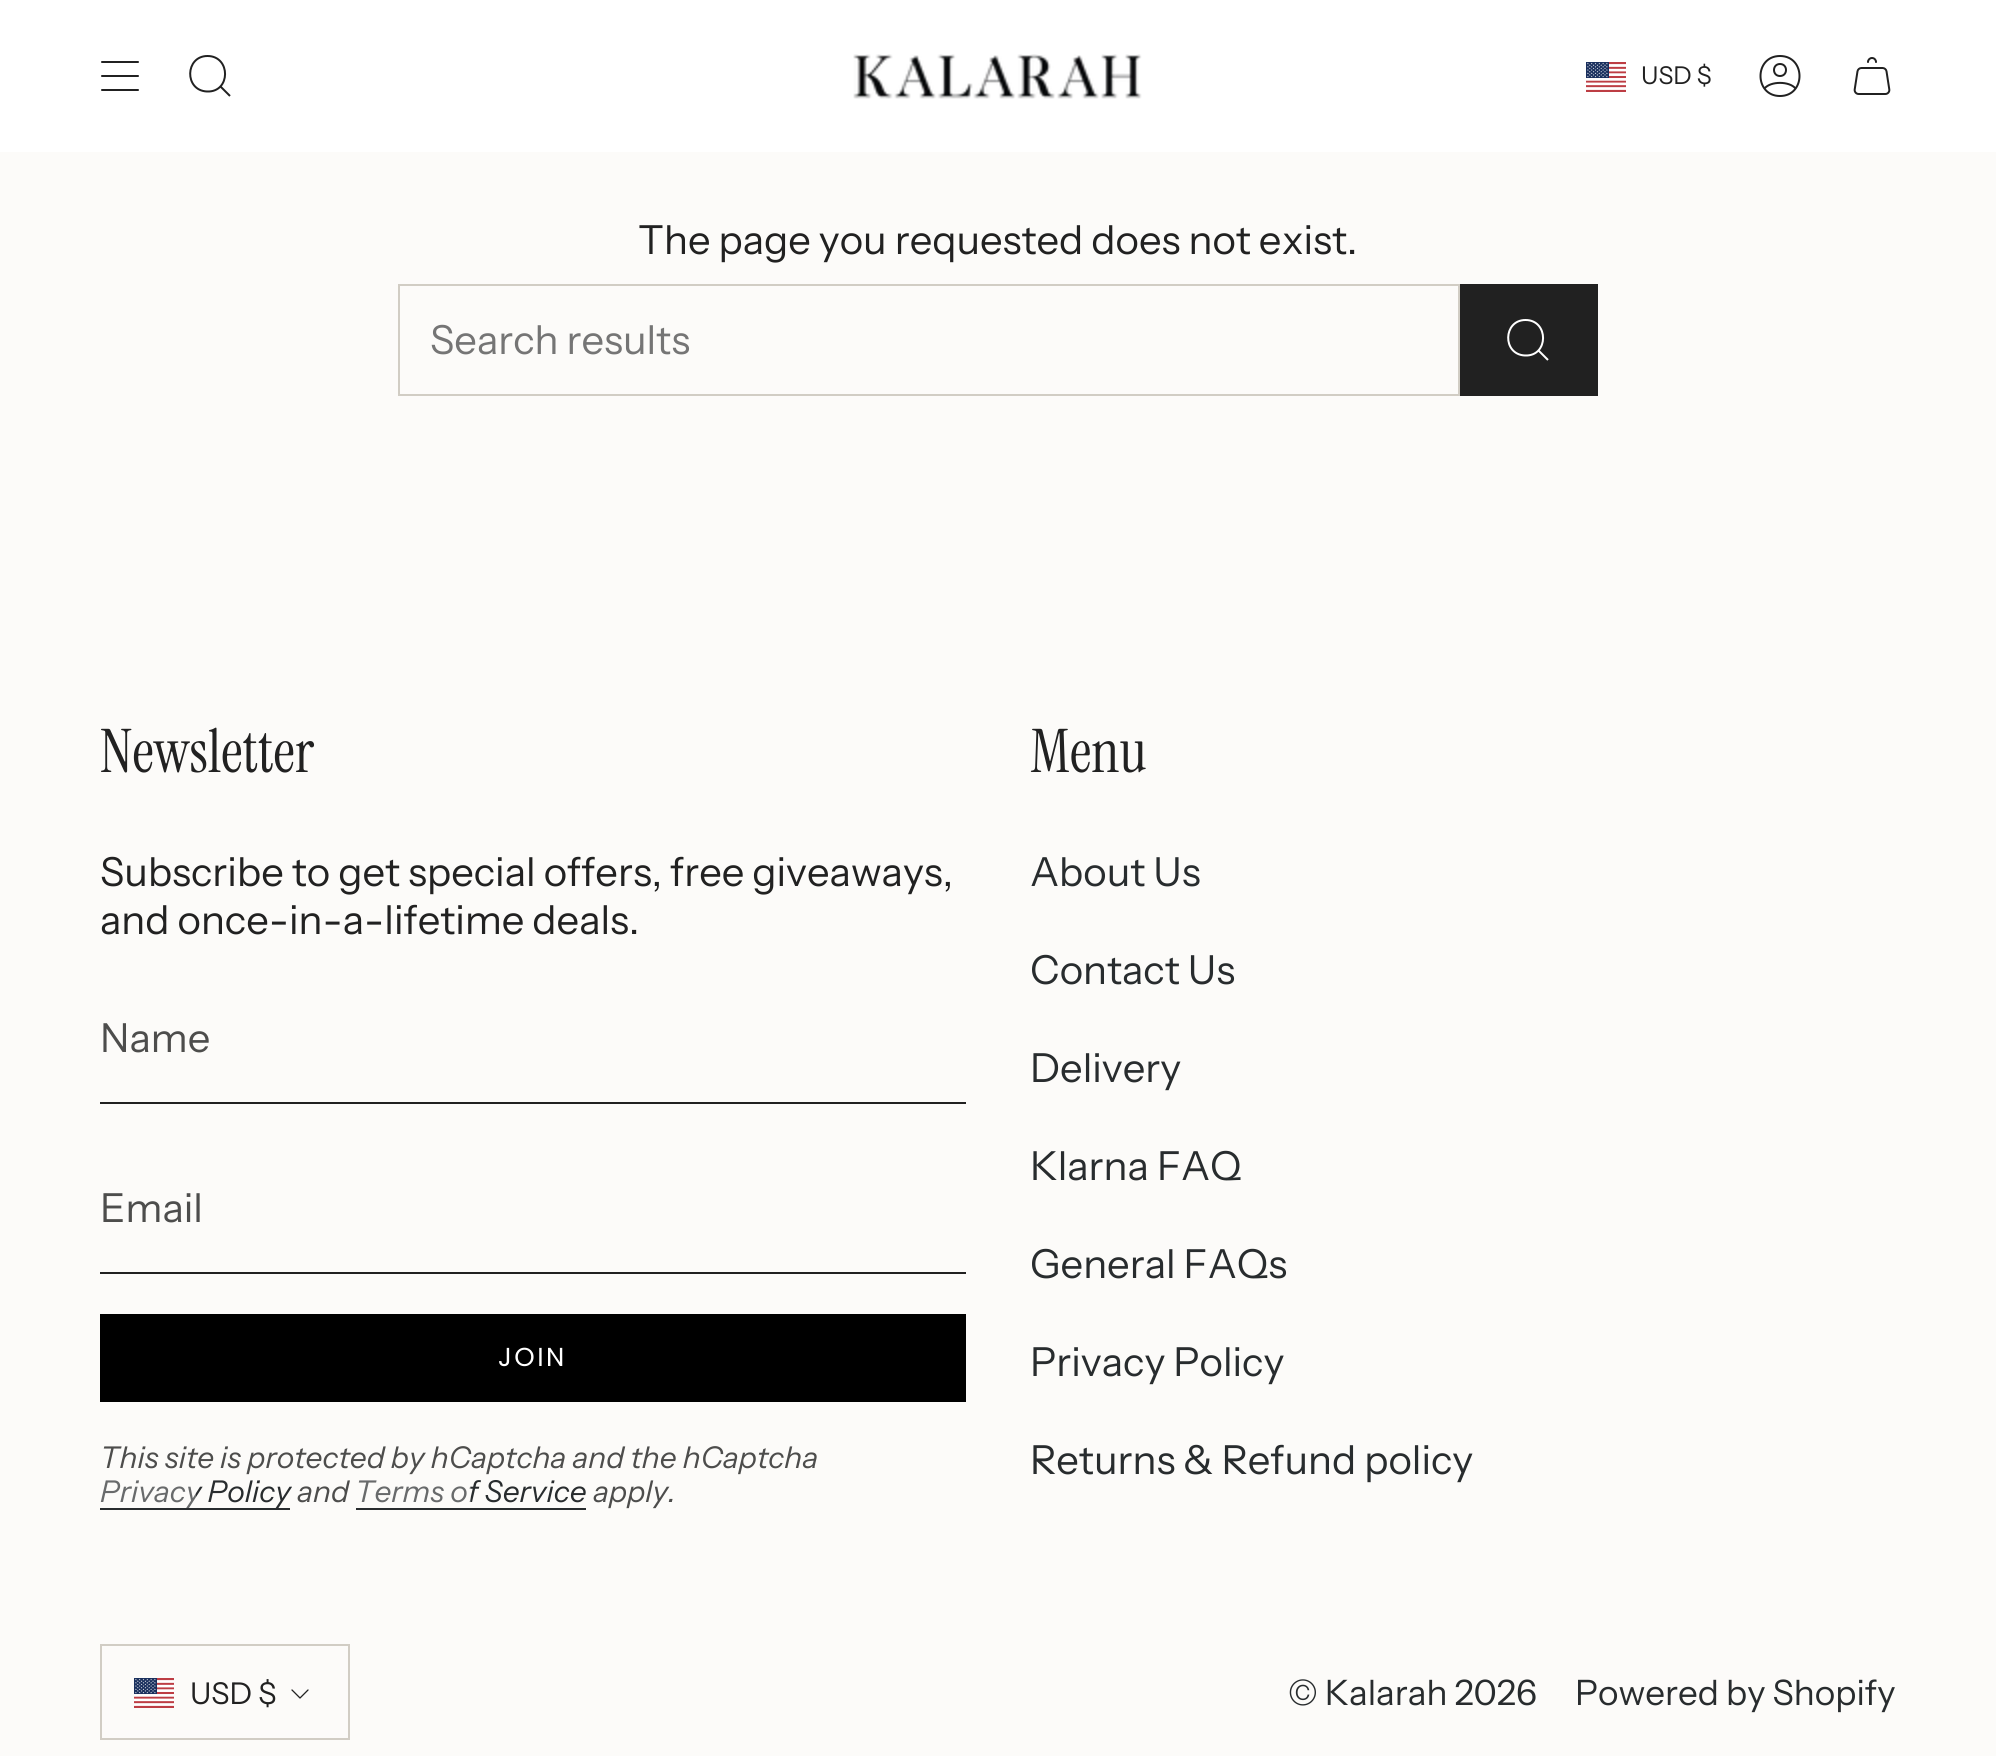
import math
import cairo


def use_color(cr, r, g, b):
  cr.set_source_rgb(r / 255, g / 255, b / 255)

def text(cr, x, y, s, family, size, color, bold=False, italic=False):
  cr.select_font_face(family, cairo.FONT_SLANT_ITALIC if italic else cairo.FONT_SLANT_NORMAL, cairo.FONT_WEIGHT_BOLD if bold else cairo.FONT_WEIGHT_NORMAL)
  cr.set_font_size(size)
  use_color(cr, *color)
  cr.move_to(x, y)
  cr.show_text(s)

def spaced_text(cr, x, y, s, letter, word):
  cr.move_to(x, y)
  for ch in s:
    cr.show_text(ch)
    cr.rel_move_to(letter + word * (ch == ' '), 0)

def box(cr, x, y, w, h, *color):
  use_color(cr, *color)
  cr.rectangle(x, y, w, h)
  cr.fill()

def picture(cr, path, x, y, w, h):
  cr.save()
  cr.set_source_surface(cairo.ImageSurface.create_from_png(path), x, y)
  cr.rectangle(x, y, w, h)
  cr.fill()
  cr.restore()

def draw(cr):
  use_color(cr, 252, 251, 249)
  cr.paint()
  box(cr, 0, 0, 1996, 152, 255, 255, 255)
  cr.new_path()
  cr.move_to(102, 62)
  cr.line_to(138, 62)
  cr.move_to(102, 76)
  cr.line_to(138, 76)
  cr.move_to(102, 90)
  cr.line_to(138, 90)
  use_color(cr, 33, 33, 33)
  cr.set_line_cap(cairo.LINE_CAP_ROUND)
  cr.set_line_join(cairo.LINE_JOIN_ROUND)
  cr.stroke()
  cr.new_path()
  cr.move_to(207.5, 56)
  cr.curve_to(231, 56, 231, 92.5, 207, 91.5)
  cr.curve_to(184, 90.5, 185, 56, 207.5, 56)
  cr.close_path()
  cr.move_to(220, 86)
  cr.line_to(230, 96)
  cr.set_line_cap(cairo.LINE_CAP_BUTT)
  cr.set_line_join(cairo.LINE_JOIN_MITER)
  cr.stroke()
  picture(cr, "img_01.png", 853, 54, 289, 45)
  picture(cr, "img_02.png", 1586, 62, 40, 30)
  cr.new_path()
  cr.move_to(1780, 56)
  cr.curve_to(1754, 56, 1754, 96, 1780, 96)
  cr.curve_to(1806, 96, 1806, 56, 1780, 56)
  cr.close_path()
  cr.move_to(1764.5, 88.5)
  cr.curve_to(1770.5, 81, 1789.5, 81, 1795.5, 88.5)
  cr.move_to(1780, 76)
  cr.curve_to(1788, 76, 1788, 64, 1780, 64)
  cr.curve_to(1772, 64, 1772, 76, 1780, 76)
  cr.close_path()
  cr.set_line_cap(cairo.LINE_CAP_ROUND)
  cr.set_line_join(cairo.LINE_JOIN_ROUND)
  cr.stroke()
  picture(cr, "img_03.png", 1853, 57, 38, 38)
  cr.rectangle(399, 285, 1060, 110)
  use_color(cr, 209, 205, 196)
  cr.set_line_cap(cairo.LINE_CAP_BUTT)
  cr.set_line_join(cairo.LINE_JOIN_MITER)
  cr.stroke()
  box(cr, 1460, 284, 138, 112, 33, 33, 33)
  cr.new_path()
  cr.move_to(1525.5, 320)
  cr.curve_to(1549, 320, 1549, 356.5, 1525, 355.5)
  cr.curve_to(1502, 354.5, 1503, 320, 1525.5, 320)
  cr.close_path()
  cr.move_to(1538, 350)
  cr.line_to(1548, 360)
  use_color(cr, 255, 255, 255)
  cr.stroke()
  box(cr, 100, 1102, 866, 2, 33, 33, 33)
  box(cr, 100, 1272, 866, 2, 33, 33, 33)
  box(cr, 100, 1314, 866, 88, 0, 0, 0)
  box(cr, 356, 1508, 230, 2, 40, 44, 46)
  cr.rectangle(101, 1645, 248, 94)
  use_color(cr, 209, 205, 196)
  cr.stroke()
  picture(cr, "img_04.png", 134, 1678, 40, 30)
  cr.new_path()
  cr.move_to(292, 1690)
  cr.line_to(300, 1698)
  cr.line_to(308, 1690)
  use_color(cr, 33, 33, 33)
  cr.set_line_width(1.3)
  cr.set_line_cap(cairo.LINE_CAP_ROUND)
  cr.set_line_join(cairo.LINE_JOIN_ROUND)
  cr.stroke()
  text(cr, 1641, 84, "USD $", "Instrument Sans", 24.5, (33, 33, 33))
  text(cr, 638, 254, "The page you requested does not exist.", "Instrument Sans", 40, (33, 33, 33))
  text(cr, 430, 354, "Search results", "Instrument Sans", 40, (117, 117, 117))
  text(cr, 100, 772, "Newsletter", "Instrument Serif", 60, (33, 33, 33))
  text(cr, 100, 886, "Subscribe to get special offers, free giveaways,", "Instrument Sans", 40, (33, 33, 33))
  text(cr, 100, 934, "and once-in-a-lifetime deals.", "Instrument Sans", 40, (33, 33, 33))
  text(cr, 100, 1052, "Name", "Instrument Sans", 40, (77, 77, 76))
  text(cr, 100, 1222, "Email", "Instrument Sans", 40, (77, 77, 76))
  cr.select_font_face("Poppins")
  cr.set_font_size(26)
  use_color(cr, 255, 255, 255)
  spaced_text(cr, 498, 1366, "JOIN", 2.5, 0)
  text(cr, 100, 1468, "This site is protected by hCaptcha and the hCaptcha", "Instrument Sans", 30, (77, 77, 76), italic=True)
  gradient = cairo.LinearGradient(100, 1491, 291, 1491)
  gradient.add_color_stop_rgba(0, 0.408, 0.416, 0.42, 1)
  gradient.add_color_stop_rgba(0.5, 0.408, 0.416, 0.42, 1)
  gradient.add_color_stop_rgba(0.5, 0.157, 0.173, 0.18, 1)
  gradient.add_color_stop_rgba(1, 0.157, 0.173, 0.18, 1)
  cr.set_source(gradient)
  cr.move_to(100, 1502)
  cr.show_text("Privacy Policy")
  box(cr, 100, 1508, 190, 2, 40, 44, 46)
  text(cr, 297, 1502, "and", "Instrument Sans", 30, (77, 77, 76), italic=True)
  gradient = cairo.LinearGradient(355, 1491, 587, 1491)
  gradient.add_color_stop_rgba(0, 0.408, 0.416, 0.42, 1)
  gradient.add_color_stop_rgba(0.5, 0.408, 0.416, 0.42, 1)
  gradient.add_color_stop_rgba(0.5, 0.157, 0.173, 0.18, 1)
  gradient.add_color_stop_rgba(1, 0.157, 0.173, 0.18, 1)
  cr.set_source(gradient)
  cr.move_to(355, 1502)
  cr.show_text("Terms of Service")
  text(cr, 593, 1502, "apply.", "Instrument Sans", 30, (77, 77, 76), italic=True)
  text(cr, 1030, 772, "Menu", "Instrument Serif", 60, (33, 33, 33))
  text(cr, 1030, 886, "About Us", "Instrument Sans", 40, (40, 44, 46))
  text(cr, 1030, 984, "Contact Us", "Instrument Sans", 40, (40, 44, 46))
  text(cr, 1030, 1082, "Delivery", "Instrument Sans", 40, (40, 44, 46))
  text(cr, 1030, 1180, "Klarna FAQ", "Instrument Sans", 40, (40, 44, 46))
  text(cr, 1030, 1278, "General FAQs", "Instrument Sans", 40, (40, 44, 46))
  text(cr, 1030, 1376, "Privacy Policy", "Instrument Sans", 40, (40, 44, 46))
  text(cr, 1030, 1474, "Returns & Refund policy", "Instrument Sans", 40, (40, 44, 46))
  text(cr, 190, 1704, "USD $", "Instrument Sans", 30, (33, 33, 33))
  text(cr, 1288, 1705, "© Kalarah 2026", "Instrument Sans", 35, (40, 44, 46))
  text(cr, 1575, 1705, "Powered by Shopify", "Instrument Sans", 35, (40, 44, 46))


surface = cairo.ImageSurface(cairo.FORMAT_RGB24, 1996, 1756)
cr = cairo.Context(surface)
options = cairo.FontOptions()
options.set_hint_metrics(cairo.HINT_METRICS_OFF)
options.set_hint_style(cairo.HINT_STYLE_NONE)
cr.set_font_options(options)
cr.set_miter_limit(4)
draw(cr)
surface.write_to_png("out.png")
